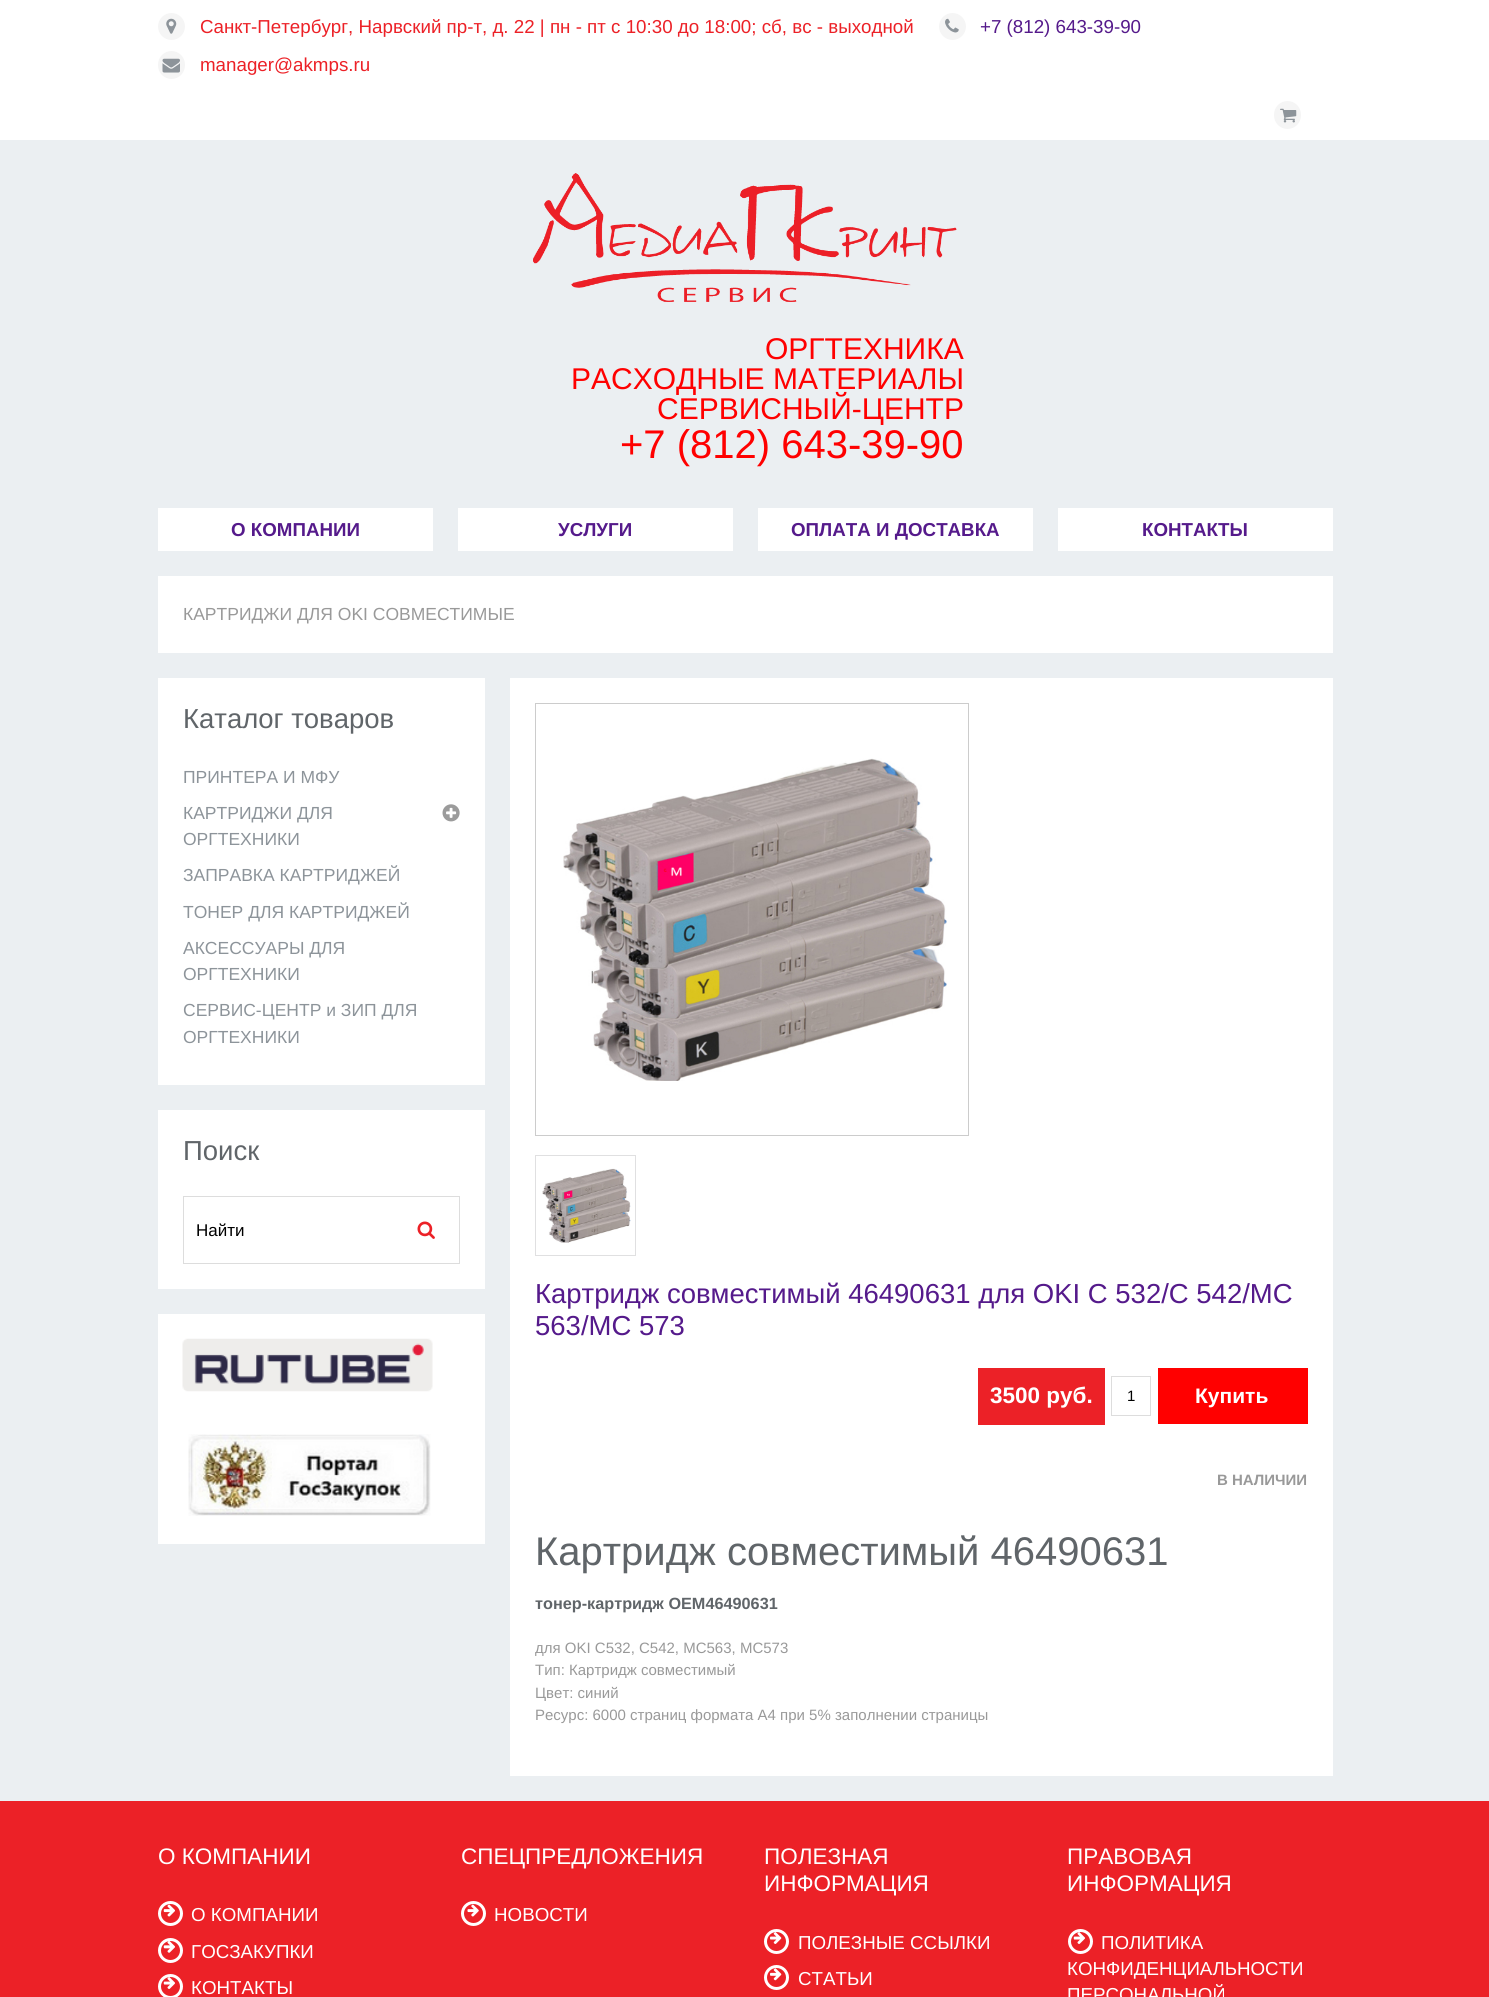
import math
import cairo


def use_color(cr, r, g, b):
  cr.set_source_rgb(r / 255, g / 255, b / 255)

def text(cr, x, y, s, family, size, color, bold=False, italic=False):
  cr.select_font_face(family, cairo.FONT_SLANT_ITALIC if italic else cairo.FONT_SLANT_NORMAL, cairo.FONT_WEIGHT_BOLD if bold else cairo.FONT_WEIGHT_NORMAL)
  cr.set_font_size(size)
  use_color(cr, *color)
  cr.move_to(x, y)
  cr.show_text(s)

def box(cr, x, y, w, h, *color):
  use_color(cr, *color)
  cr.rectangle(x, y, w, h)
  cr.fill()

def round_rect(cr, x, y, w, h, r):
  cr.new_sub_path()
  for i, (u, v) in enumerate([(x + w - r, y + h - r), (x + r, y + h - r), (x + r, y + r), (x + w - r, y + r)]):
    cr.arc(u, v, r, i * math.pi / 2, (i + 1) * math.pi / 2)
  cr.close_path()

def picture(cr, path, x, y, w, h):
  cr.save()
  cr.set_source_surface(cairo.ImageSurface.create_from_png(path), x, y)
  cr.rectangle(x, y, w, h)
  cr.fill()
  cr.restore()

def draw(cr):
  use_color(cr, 235, 239, 242)
  cr.paint()
  box(cr, 0, 0, 1489, 140, 255, 255, 255)
  use_color(cr, 245, 245, 245)
  cr.arc(171.5, 26.5, 13.5, 0, 2 * math.pi)
  cr.fill()
  picture(cr, "img_01.png", 166, 18, 11, 16)
  cr.arc(952.5, 26.5, 13.5, 0, 2 * math.pi)
  cr.fill()
  picture(cr, "img_02.png", 945, 18, 14, 15)
  round_rect(cr, 158, 51, 27, 28, 13.5)
  cr.fill()
  picture(cr, "img_03.png", 162, 58, 18, 15)
  round_rect(cr, 1274, 101, 27, 28, 13.5)
  cr.fill()
  picture(cr, "img_04.png", 1280, 108, 17, 15)
  picture(cr, "img_05.png", 533, 173, 424, 129)
  box(cr, 158, 508, 275, 43, 255, 255, 255)
  box(cr, 458, 508, 275, 43, 255, 255, 255)
  box(cr, 758, 508, 275, 43, 255, 255, 255)
  box(cr, 1058, 508, 275, 43, 255, 255, 255)
  box(cr, 158, 576, 1175, 77, 255, 255, 255)
  box(cr, 158, 678, 327, 407, 255, 255, 255)
  picture(cr, "img_06.png", 442, 804, 18, 18)
  box(cr, 158, 1110, 327, 179, 255, 255, 255)
  cr.rectangle(183.5, 1196.5, 276, 67)
  use_color(cr, 221, 221, 221)
  cr.set_line_width(1)
  cr.stroke()
  picture(cr, "img_07.png", 417, 1221, 18, 18)
  box(cr, 158, 1314, 327, 230, 255, 255, 255)
  picture(cr, "img_08.png", 182, 1338, 251, 54)
  picture(cr, "img_09.png", 188, 1434, 243, 82)
  box(cr, 510, 678, 823, 1098, 255, 255, 255)
  cr.rectangle(535.5, 703.5, 433, 432)
  use_color(cr, 204, 204, 204)
  cr.stroke()
  picture(cr, "img_10.png", 563, 758, 384, 323)
  cr.rectangle(535.5, 1155.5, 100, 100)
  use_color(cr, 224, 224, 225)
  cr.stroke()
  picture(cr, "img_11.png", 542, 1168, 89, 75)
  box(cr, 978, 1368, 127, 57, 236, 33, 39)
  cr.rectangle(1111.5, 1376.5, 39, 39)
  use_color(cr, 221, 221, 221)
  cr.stroke()
  box(cr, 1158, 1368, 150, 56, 255, 0, 0)
  box(cr, 0, 1801, 1489, 196, 236, 33, 39)
  cr.arc(170.5, 1913.5, 11, 0, 2 * math.pi)
  use_color(cr, 255, 255, 255)
  cr.set_line_width(3)
  cr.stroke()
  picture(cr, "img_12.png", 163, 1904, 12, 13)
  cr.arc(170.5, 1950.5, 11, 0, 2 * math.pi)
  cr.stroke()
  picture(cr, "img_13.png", 163, 1941, 12, 12)
  cr.arc(170.5, 1986.5, 11, 0, 2 * math.pi)
  cr.stroke()
  picture(cr, "img_14.png", 163, 1977, 12, 12)
  cr.arc(473.5, 1913.5, 11, 0, 2 * math.pi)
  cr.stroke()
  picture(cr, "img_15.png", 467, 1904, 12, 13)
  cr.arc(776.5, 1941.5, 11, 0, 2 * math.pi)
  cr.stroke()
  picture(cr, "img_16.png", 770, 1932, 12, 12)
  cr.arc(776.5, 1977.5, 11, 0, 2 * math.pi)
  cr.stroke()
  picture(cr, "img_17.png", 770, 1968, 12, 13)
  cr.arc(1080.5, 1941.5, 11, 0, 2 * math.pi)
  cr.stroke()
  picture(cr, "img_14.png", 1073, 1932, 12, 12)
  text(cr, 200, 33, "Санкт-Петербург, Нарвский пр-т, д. 22 | пн - пт с 10:30 до 18:00; сб, вс - выходной", "Liberation Sans", 18.75, (236, 33, 39))
  text(cr, 980, 33, "+7 (812) 643-39-90", "Liberation Sans", 18.75, (85, 26, 139))
  text(cr, 200, 71, "manager@akmps.ru", "Liberation Sans", 18.75, (236, 33, 39))
  text(cr, 765, 359, "ОРГТЕХНИКА", "Liberation Sans", 30, (255, 0, 0))
  text(cr, 571, 389, "РАСХОДНЫЕ МАТЕРИАЛЫ", "Liberation Sans", 30, (255, 0, 0))
  text(cr, 657, 419, "СЕРВИСНЫЙ-ЦЕНТР", "Liberation Sans", 30, (255, 0, 0))
  text(cr, 620, 458, "+7 (812) 643-39-90", "Liberation Sans", 40, (255, 0, 0))
  text(cr, 231, 536, "О КОМПАНИИ", "Liberation Sans", 18.75, (85, 26, 139), bold=True)
  text(cr, 558, 536, "УСЛУГИ", "Liberation Sans", 18.75, (85, 26, 139), bold=True)
  text(cr, 791, 536, "ОПЛАТА И ДОСТАВКА", "Liberation Sans", 18.75, (85, 26, 139), bold=True)
  text(cr, 1142, 536, "КОНТАКТЫ", "Liberation Sans", 18.75, (85, 26, 139), bold=True)
  text(cr, 183, 620, "КАРТРИДЖИ ДЛЯ OKI СОВМЕСТИМЫЕ", "Liberation Sans", 17.5, (153, 153, 153))
  text(cr, 183, 728, "Каталог товаров", "Liberation Sans", 27.5, (96, 101, 105))
  text(cr, 183, 783, "ПРИНТЕРА И МФУ", "Liberation Sans", 17.5, (141, 148, 154))
  text(cr, 183, 819, "КАРТРИДЖИ ДЛЯ", "Liberation Sans", 17.5, (141, 148, 154))
  text(cr, 183, 845, "ОРГТЕХНИКИ", "Liberation Sans", 17.5, (141, 148, 154))
  text(cr, 183, 881, "ЗАПРАВКА КАРТРИДЖЕЙ", "Liberation Sans", 17.5, (141, 148, 154))
  text(cr, 183, 918, "ТОНЕР ДЛЯ КАРТРИДЖЕЙ", "Liberation Sans", 17.5, (141, 148, 154))
  text(cr, 183, 954, "АКСЕССУАРЫ ДЛЯ", "Liberation Sans", 17.5, (141, 148, 154))
  text(cr, 183, 980, "ОРГТЕХНИКИ", "Liberation Sans", 17.5, (141, 148, 154))
  text(cr, 183, 1016, "СЕРВИС-ЦЕНТР и ЗИП ДЛЯ", "Liberation Sans", 17.5, (141, 148, 154))
  text(cr, 183, 1043, "ОРГТЕХНИКИ", "Liberation Sans", 17.5, (141, 148, 154))
  text(cr, 183, 1160, "Поиск", "Liberation Sans", 27.5, (96, 101, 105))
  text(cr, 196, 1236, "Найти", "Liberation Sans", 17, (0, 0, 0))
  text(cr, 535, 1303, "Картридж совместимый 46490631 для OKI C 532/C 542/MC", "Liberation Sans", 27.5, (85, 26, 139))
  text(cr, 535, 1335, "563/MC 573", "Liberation Sans", 27.5, (85, 26, 139))
  text(cr, 990, 1403, "3500 руб.", "Liberation Sans", 22.5, (255, 255, 255), bold=True)
  text(cr, 1127, 1401, "1", "Liberation Sans", 15, (0, 0, 0))
  text(cr, 1195, 1403, "Купить", "Liberation Sans", 21, (255, 255, 255), bold=True)
  text(cr, 1217, 1485, "В НАЛИЧИИ", "Liberation Sans", 15, (153, 153, 153), bold=True)
  text(cr, 535, 1565, "Картридж совместимый 46490631", "Liberation Sans", 40, (96, 101, 105))
  text(cr, 535, 1609, "тонер-картридж OEM46490631", "Liberation Sans", 16.25, (96, 101, 105), bold=True)
  text(cr, 535, 1653, "для OKI C532, C542, MC563, MC573", "Liberation Sans", 15, (153, 153, 153))
  text(cr, 535, 1675, "Тип: Картридж совместимый", "Liberation Sans", 15, (153, 153, 153))
  text(cr, 535, 1698, "Цвет: синий", "Liberation Sans", 15, (153, 153, 153))
  text(cr, 535, 1720, "Ресурс: 6000 страниц формата А4 при 5% заполнении страницы", "Liberation Sans", 15, (153, 153, 153))
  text(cr, 158, 1864, "О КОМПАНИИ", "Liberation Sans", 22.5, (255, 255, 255))
  text(cr, 191, 1921, "О КОМПАНИИ", "Liberation Sans", 18.75, (255, 255, 255))
  text(cr, 191, 1958, "ГОСЗАКУПКИ", "Liberation Sans", 18.75, (255, 255, 255))
  text(cr, 191, 1994, "КОНТАКТЫ", "Liberation Sans", 18.75, (255, 255, 255))
  text(cr, 461, 1864, "СПЕЦПРЕДЛОЖЕНИЯ", "Liberation Sans", 22.5, (255, 255, 255))
  text(cr, 494, 1921, "НОВОСТИ", "Liberation Sans", 18.75, (255, 255, 255))
  text(cr, 764, 1864, "ПОЛЕЗНАЯ", "Liberation Sans", 22.5, (255, 255, 255))
  text(cr, 764, 1891, "ИНФОРМАЦИЯ", "Liberation Sans", 22.5, (255, 255, 255))
  text(cr, 798, 1949, "ПОЛЕЗНЫЕ ССЫЛКИ", "Liberation Sans", 18.75, (255, 255, 255))
  text(cr, 798, 1985, "СТАТЬИ", "Liberation Sans", 18.75, (255, 255, 255))
  text(cr, 1067, 1864, "ПРАВОВАЯ", "Liberation Sans", 22.5, (255, 255, 255))
  text(cr, 1067, 1891, "ИНФОРМАЦИЯ", "Liberation Sans", 22.5, (255, 255, 255))
  text(cr, 1101, 1949, "ПОЛИТИКА", "Liberation Sans", 18.75, (255, 255, 255))
  text(cr, 1067, 1975, "КОНФИДЕНЦИАЛЬНОСТИ", "Liberation Sans", 18.75, (255, 255, 255))
  text(cr, 1067, 2001, "ПЕРСОНАЛЬНОЙ", "Liberation Sans", 18.75, (255, 255, 255))


surface = cairo.ImageSurface(cairo.FORMAT_RGB24, 1489, 1997)
cr = cairo.Context(surface)
options = cairo.FontOptions()
options.set_hint_metrics(cairo.HINT_METRICS_OFF)
options.set_hint_style(cairo.HINT_STYLE_NONE)
cr.set_font_options(options)
cr.set_miter_limit(4)
draw(cr)
surface.write_to_png("out.png")
